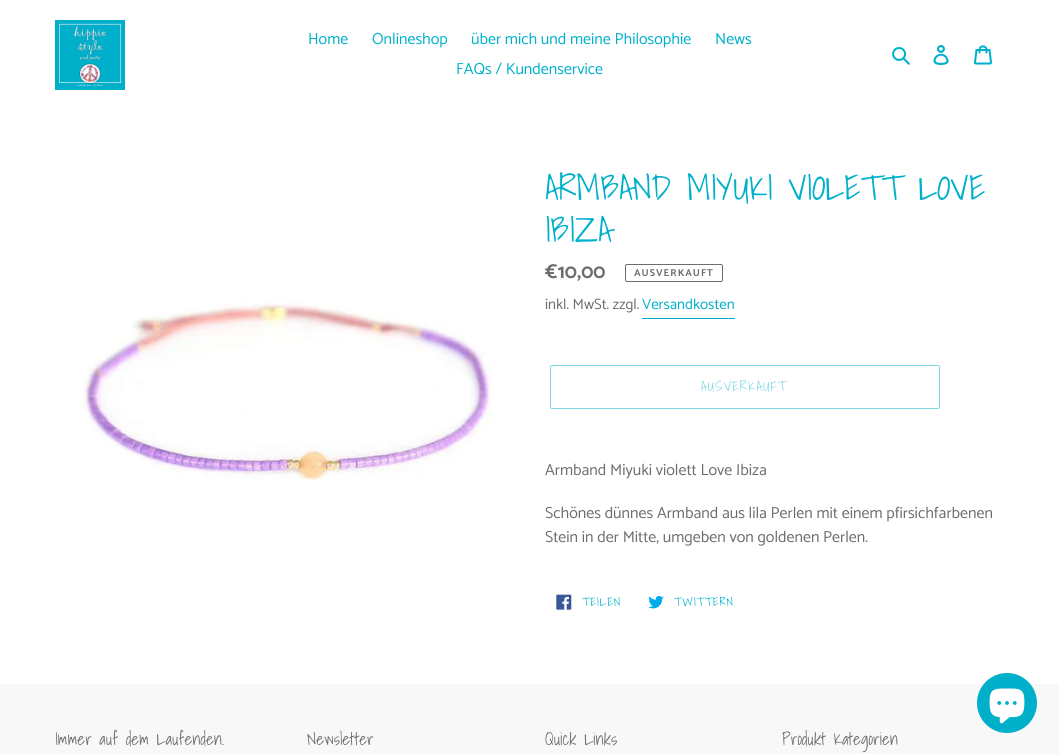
import math
import cairo


def use_color(cr, r, g, b):
  cr.set_source_rgb(r / 255, g / 255, b / 255)

def text(cr, x, y, s, family, size, color, bold=False, italic=False):
  cr.select_font_face(family, cairo.FONT_SLANT_ITALIC if italic else cairo.FONT_SLANT_NORMAL, cairo.FONT_WEIGHT_BOLD if bold else cairo.FONT_WEIGHT_NORMAL)
  cr.set_font_size(size)
  use_color(cr, *color)
  cr.move_to(x, y)
  cr.show_text(s)

def spaced_text(cr, x, y, s, letter, word):
  cr.move_to(x, y)
  for ch in s:
    cr.show_text(ch)
    cr.rel_move_to(letter + word * (ch == ' '), 0)

def box(cr, x, y, w, h, *color):
  use_color(cr, *color)
  cr.rectangle(x, y, w, h)
  cr.fill()

def round_rect(cr, x, y, w, h, r):
  cr.new_sub_path()
  for i, (u, v) in enumerate([(x + w - r, y + h - r), (x + r, y + h - r), (x + r, y + r), (x + w - r, y + r)]):
    cr.arc(u, v, r, i * math.pi / 2, (i + 1) * math.pi / 2)
  cr.close_path()

def picture(cr, path, x, y, w, h):
  cr.save()
  cr.set_source_surface(cairo.ImageSurface.create_from_png(path), x, y)
  cr.rectangle(x, y, w, h)
  cr.fill()
  cr.restore()

def draw(cr):
  use_color(cr, 255, 255, 255)
  cr.paint()
  picture(cr, "img_01.png", 55, 20, 70, 70)
  picture(cr, "img_02.png", 892, 47, 18, 18)
  picture(cr, "img_03.png", 933, 45, 16, 20)
  picture(cr, "img_04.png", 974, 45, 18, 20)
  picture(cr, "img_05.png", 82, 300, 412, 181)
  round_rect(cr, 625.5, 264.5, 97, 17, 1.5)
  use_color(cr, 109, 109, 109)
  cr.set_line_width(1)
  cr.stroke()
  box(cr, 642, 318, 93, 1, 0, 176, 202)
  round_rect(cr, 550.5, 365.5, 389, 43, 1.5)
  use_color(cr, 128, 216, 229)
  cr.stroke()
  picture(cr, "img_06.png", 556, 594, 16, 16)
  picture(cr, "img_07.png", 648, 595, 16, 14)
  box(cr, 0, 684, 1059, 70, 248, 248, 248)
  use_color(cr, 0, 176, 202)
  cr.arc(1007, 703, 30, 0, 2 * math.pi)
  cr.fill()
  picture(cr, "img_08.png", 989, 688, 36, 36)
  text(cr, 308, 44, "Home", "Catamaran", 16, (0, 176, 202))
  text(cr, 372, 44, "Onlineshop", "Catamaran", 16, (0, 176, 202))
  text(cr, 471, 44, "über mich und meine Philosophie", "Catamaran", 16, (0, 176, 202))
  text(cr, 715, 44, "News", "Catamaran", 16, (0, 176, 202))
  text(cr, 456, 74, "FAQs / Kundenservice", "Catamaran", 16, (0, 176, 202))
  text(cr, 545, 200, "ARMBAND MIYUKI VIOLETT LOVE", "Shadows Into Light", 35, (0, 176, 202))
  text(cr, 545, 242, "IBIZA", "Shadows Into Light", 35, (0, 176, 202))
  text(cr, 545, 278, "€10,00", "Catamaran", 20, (109, 109, 109), bold=True)
  cr.set_font_size(10)
  spaced_text(cr, 634, 276, "AUSVERKAUFT", 1, 0)
  text(cr, 545, 309, "inkl. MwSt. zzgl.", "Catamaran", 15, (109, 109, 109))
  text(cr, 642, 309, "Versandkosten", "Catamaran", 15, (0, 176, 202))
  cr.select_font_face("Shadows Into Light")
  cr.set_font_size(14)
  use_color(cr, 128, 216, 229)
  spaced_text(cr, 701, 391, "AUSVERKAUFT", 1.1, 0)
  text(cr, 545, 475, "Armband Miyuki violett Love Ibiza", "Catamaran", 16, (109, 109, 109))
  text(cr, 545, 518, "Schönes dünnes Armband aus lila Perlen mit einem pfirsichfarbenen", "Catamaran", 16, (109, 109, 109))
  text(cr, 545, 542, "Stein in der Mitte, umgeben von goldenen Perlen.", "Catamaran", 16, (109, 109, 109))
  cr.select_font_face("Shadows Into Light")
  cr.set_font_size(12)
  use_color(cr, 0, 176, 202)
  spaced_text(cr, 582, 606, "TEILEN", 1, 0)
  spaced_text(cr, 674, 606, "TWITTERN", 1, 0)
  text(cr, 55, 745, "Immer auf dem Laufenden.", "Shadows Into Light", 17, (109, 109, 109))
  text(cr, 307, 745, "Newsletter", "Shadows Into Light", 17, (109, 109, 109))
  text(cr, 545, 745, "Quick Links", "Shadows Into Light", 17, (109, 109, 109))
  text(cr, 782, 745, "Produkt Kategorien", "Shadows Into Light", 17, (109, 109, 109))


surface = cairo.ImageSurface(cairo.FORMAT_RGB24, 1059, 754)
cr = cairo.Context(surface)
options = cairo.FontOptions()
options.set_hint_metrics(cairo.HINT_METRICS_OFF)
options.set_hint_style(cairo.HINT_STYLE_NONE)
cr.set_font_options(options)
cr.set_miter_limit(4)
draw(cr)
surface.write_to_png("out.png")
